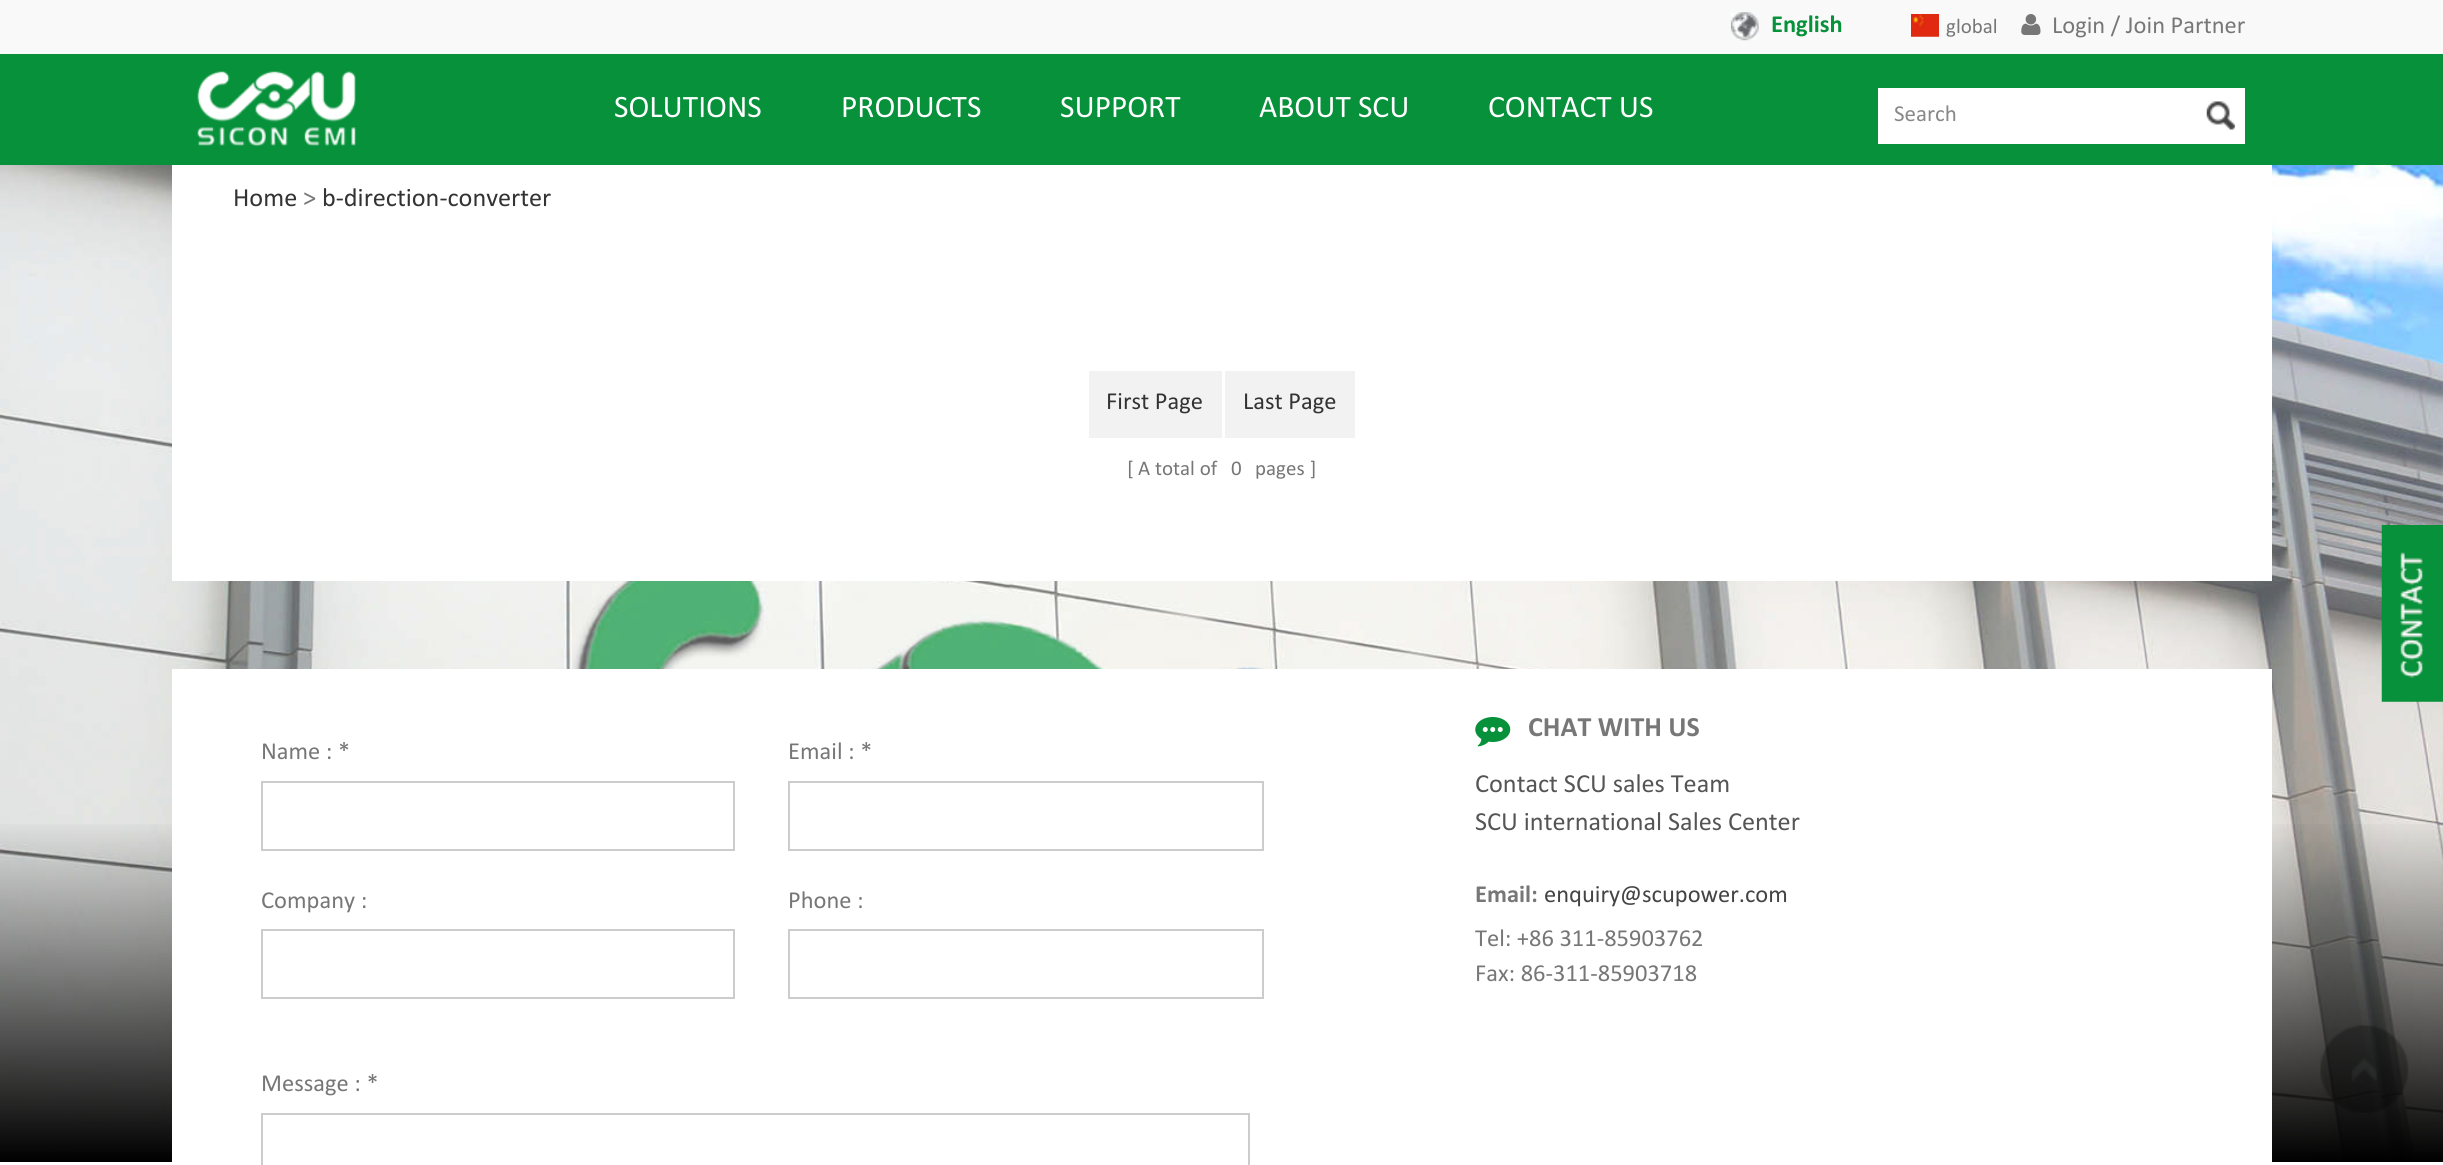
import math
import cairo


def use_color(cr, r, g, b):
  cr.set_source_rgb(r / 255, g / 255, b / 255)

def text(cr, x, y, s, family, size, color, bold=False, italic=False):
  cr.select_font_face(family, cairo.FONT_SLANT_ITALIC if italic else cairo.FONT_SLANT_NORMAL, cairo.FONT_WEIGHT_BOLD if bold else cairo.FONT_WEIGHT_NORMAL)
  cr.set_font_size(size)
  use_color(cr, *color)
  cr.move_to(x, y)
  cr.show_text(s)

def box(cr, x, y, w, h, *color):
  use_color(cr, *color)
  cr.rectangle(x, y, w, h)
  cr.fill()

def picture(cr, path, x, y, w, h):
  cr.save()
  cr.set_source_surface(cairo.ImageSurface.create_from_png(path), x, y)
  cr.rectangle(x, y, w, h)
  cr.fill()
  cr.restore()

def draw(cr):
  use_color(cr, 255, 255, 255)
  cr.paint()
  box(cr, 0, 0, 2443, 54, 249, 249, 249)
  picture(cr, "img_01.png", 1730, 12, 29, 29)
  picture(cr, "img_02.png", 1911, 14, 28, 23)
  picture(cr, "img_03.png", 2021, 14, 20, 21)
  box(cr, 0, 54, 2443, 111, 6, 145, 58)
  picture(cr, "img_04.png", 197, 71, 159, 75)
  box(cr, 1878, 88, 367, 56, 255, 255, 255)
  picture(cr, "img_05.png", 2206, 101, 29, 29)
  picture(cr, "img_06.png", 0, 165, 2443, 995)
  gradient = cairo.LinearGradient(1222, 817, 1222, 1162)
  gradient.add_color_stop_rgba(0, 0, 0, 0, 0)
  gradient.add_color_stop_rgba(1, 0, 0, 0, 1)
  cr.set_source(gradient)
  cr.rectangle(0, 824, 2443, 338)
  cr.fill()
  box(cr, 172, 165, 2100, 416, 255, 255, 255)
  box(cr, 1089, 371, 133, 67, 242, 242, 242)
  box(cr, 1225, 371, 130, 67, 242, 242, 242)
  box(cr, 172, 669, 2100, 493, 255, 255, 255)
  cr.rectangle(262, 782, 472, 68)
  use_color(cr, 204, 204, 204)
  cr.stroke()
  cr.rectangle(789, 782, 474, 68)
  cr.stroke()
  cr.rectangle(262, 930, 472, 68)
  cr.stroke()
  cr.rectangle(789, 930, 474, 68)
  cr.stroke()
  cr.rectangle(262, 1114, 987, 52)
  cr.stroke()
  picture(cr, "img_07.png", 1475, 717, 36, 30)
  picture(cr, "img_08.png", 2381, 525, 62, 177)
  picture(cr, "img_09.png", 2320, 1025, 89, 88)
  text(cr, 1771, 32, "English", "Calibri", 24.5, (6, 145, 58), bold=True)
  text(cr, 1946, 33, "global", "Calibri", 21, (119, 119, 119))
  text(cr, 2052, 33, "Login / Join Partner", "Calibri", 24.5, (119, 119, 119))
  text(cr, 614, 117, "SOLUTIONS", "Calibri", 31.5, (255, 255, 255))
  text(cr, 841, 117, "PRODUCTS", "Calibri", 31.5, (255, 255, 255))
  text(cr, 1060, 117, "SUPPORT", "Calibri", 31.5, (255, 255, 255))
  text(cr, 1259, 117, "ABOUT SCU", "Calibri", 31.5, (255, 255, 255))
  text(cr, 1488, 117, "CONTACT US", "Calibri", 31.5, (255, 255, 255))
  text(cr, 1894, 121, "Search", "Calibri", 23, (136, 136, 136))
  text(cr, 233, 206, "Home", "Calibri", 26.25, (51, 51, 51))
  text(cr, 303, 206, ">", "Calibri", 26.25, (119, 119, 119))
  text(cr, 322, 206, "b-direction-converter", "Calibri", 26.25, (51, 51, 51))
  text(cr, 1106, 409, "First Page", "Calibri", 24.5, (51, 51, 51))
  text(cr, 1243, 409, "Last Page", "Calibri", 24.5, (51, 51, 51))
  text(cr, 1127, 475, "[", "Calibri", 21, (119, 119, 119))
  text(cr, 1138, 475, "A total of", "Calibri", 21, (119, 119, 119))
  text(cr, 1231, 475, "0", "Calibri", 21, (119, 119, 119))
  text(cr, 1255, 475, "pages", "Calibri", 21, (119, 119, 119))
  text(cr, 1310, 475, "]", "Calibri", 21, (119, 119, 119))
  text(cr, 261, 759, "Name : *", "Calibri", 24.5, (119, 119, 119))
  text(cr, 788, 759, "Email : *", "Calibri", 24.5, (119, 119, 119))
  text(cr, 261, 908, "Company :", "Calibri", 24.5, (119, 119, 119))
  text(cr, 788, 908, "Phone :", "Calibri", 24.5, (119, 119, 119))
  text(cr, 261, 1091, "Message : *", "Calibri", 24.5, (119, 119, 119))
  text(cr, 1528, 736, "CHAT WITH US", "Calibri", 28, (119, 119, 119), bold=True)
  text(cr, 1475, 792, "Contact SCU sales Team", "Calibri", 26.25, (85, 85, 85))
  text(cr, 1475, 830, "SCU international Sales Center", "Calibri", 26.25, (85, 85, 85))
  text(cr, 1475, 902, "Email:", "Calibri", 24.5, (119, 119, 119), bold=True)
  text(cr, 1544, 902, "enquiry@scupower.com", "Calibri", 24.5, (68, 68, 68))
  text(cr, 1475, 946, "Tel: +86 311-85903762", "Calibri", 24.5, (119, 119, 119))
  text(cr, 1475, 981, "Fax: 86-311-85903718", "Calibri", 24.5, (119, 119, 119))


surface = cairo.ImageSurface(cairo.FORMAT_RGB24, 2443, 1165)
cr = cairo.Context(surface)
options = cairo.FontOptions()
options.set_hint_metrics(cairo.HINT_METRICS_OFF)
options.set_hint_style(cairo.HINT_STYLE_NONE)
cr.set_font_options(options)
cr.set_miter_limit(4)
draw(cr)
surface.write_to_png("out.png")
